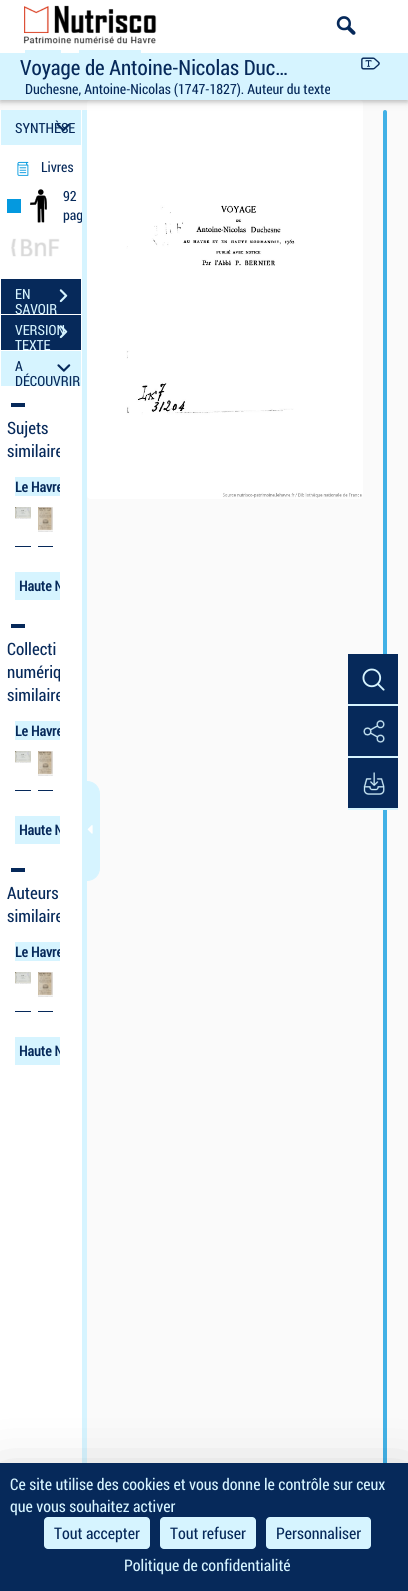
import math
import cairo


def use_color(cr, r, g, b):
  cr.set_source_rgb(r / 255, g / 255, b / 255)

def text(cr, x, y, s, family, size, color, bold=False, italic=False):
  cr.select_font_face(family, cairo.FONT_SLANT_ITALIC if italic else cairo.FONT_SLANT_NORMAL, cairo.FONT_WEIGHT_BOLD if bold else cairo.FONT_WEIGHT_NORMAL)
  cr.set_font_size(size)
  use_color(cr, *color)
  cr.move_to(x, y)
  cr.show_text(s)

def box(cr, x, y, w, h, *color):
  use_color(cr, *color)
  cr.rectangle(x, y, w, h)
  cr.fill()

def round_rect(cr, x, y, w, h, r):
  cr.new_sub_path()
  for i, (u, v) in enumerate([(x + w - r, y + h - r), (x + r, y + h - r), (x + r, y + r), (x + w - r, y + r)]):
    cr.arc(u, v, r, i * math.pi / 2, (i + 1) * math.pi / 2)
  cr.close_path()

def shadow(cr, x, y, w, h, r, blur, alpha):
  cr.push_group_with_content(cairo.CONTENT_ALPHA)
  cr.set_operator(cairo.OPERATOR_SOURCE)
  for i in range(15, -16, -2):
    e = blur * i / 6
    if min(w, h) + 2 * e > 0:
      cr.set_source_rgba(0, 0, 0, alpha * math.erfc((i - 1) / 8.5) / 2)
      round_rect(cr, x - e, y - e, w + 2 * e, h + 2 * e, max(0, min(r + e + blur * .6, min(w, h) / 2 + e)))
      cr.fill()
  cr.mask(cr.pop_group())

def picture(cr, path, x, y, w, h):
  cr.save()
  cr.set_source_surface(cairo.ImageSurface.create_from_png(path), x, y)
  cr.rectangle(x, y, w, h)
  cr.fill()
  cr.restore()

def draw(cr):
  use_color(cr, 250, 250, 250)
  cr.paint()
  picture(cr, "img_14.png", 87, 100, 276, 399)
  use_color(cr, 66, 177, 230)
  round_rect(cr, 383, 110, 4, 1461, 2)
  cr.fill()
  use_color(cr, 0, 0, 0)
  shadow(cr, 0, 52, 408, 50, 0, 5, 0.12)
  shadow(cr, 0, 52, 408, 50, 0, 2, 0.16)
  box(cr, 0, 0, 408, 53, 255, 255, 255)
  picture(cr, "img_01.png", 23, 5, 134, 39)
  picture(cr, "img_02.png", 336, 16, 20, 19)
  box(cr, 0, 53, 408, 47, 214, 244, 255)
  box(cr, 25, 50, 36, 3, 214, 244, 255)
  box(cr, 79, 50, 62, 3, 214, 244, 255)
  picture(cr, "img_03.png", 361, 57, 19, 13)
  box(cr, 82, 110, 5, 1353, 214, 244, 255)
  box(cr, 0, 110, 82, 1353, 255, 255, 255)
  box(cr, 1, 110, 80, 35, 214, 244, 255)
  picture(cr, "img_05.png", 17, 161, 12, 15)
  box(cr, 7, 199, 14, 14, 4, 153, 223)
  picture(cr, "img_06.png", 30, 189, 17, 34)
  picture(cr, "img_07.png", 11, 238, 49, 19)
  box(cr, 1, 279, 80, 35, 6, 41, 90)
  picture(cr, "img_08.png", 59, 289, 9, 14)
  box(cr, 1, 315, 80, 35, 6, 41, 90)
  box(cr, 1, 351, 80, 35, 214, 244, 255)
  picture(cr, "img_10.png", 57, 364, 14, 8)
  box(cr, 11, 403, 14, 4, 6, 41, 90)
  box(cr, 15, 477, 45, 19, 214, 244, 255)
  picture(cr, "img_11.png", 15, 507, 16, 12)
  box(cr, 15, 546, 16, 1, 6, 41, 90)
  picture(cr, "img_12.png", 38, 507, 15, 25)
  box(cr, 38, 546, 15, 1, 6, 41, 90)
  box(cr, 15, 572, 45, 28, 214, 244, 255)
  box(cr, 11, 624, 14, 4, 6, 41, 90)
  box(cr, 15, 721, 45, 19, 214, 244, 255)
  picture(cr, "img_11.png", 15, 751, 16, 12)
  box(cr, 15, 790, 16, 1, 6, 41, 90)
  picture(cr, "img_12.png", 38, 751, 15, 25)
  box(cr, 38, 790, 15, 1, 6, 41, 90)
  box(cr, 15, 816, 45, 28, 214, 244, 255)
  box(cr, 11, 868, 14, 4, 6, 41, 90)
  box(cr, 15, 942, 45, 19, 214, 244, 255)
  picture(cr, "img_11.png", 15, 972, 16, 12)
  box(cr, 15, 1011, 16, 1, 6, 41, 90)
  picture(cr, "img_12.png", 38, 972, 15, 25)
  box(cr, 38, 1011, 15, 1, 6, 41, 90)
  box(cr, 15, 1037, 45, 28, 214, 244, 255)
  cr.new_path()
  cr.move_to(87.5, 781.5)
  cr.line_to(87, 781.5)
  cr.curve_to(94, 781.5, 99.5, 787, 99.5, 794)
  cr.line_to(99.5, 868)
  cr.curve_to(99.5, 875, 94, 880.5, 87, 880.5)
  cr.line_to(87.5, 880.5)
  cr.close_path()
  cr.fill_preserve()
  cr.set_line_width(1)
  cr.stroke()
  picture(cr, "img_13.png", 87, 825, 6, 9)
  box(cr, 348, 654, 50, 50, 6, 41, 90)
  picture(cr, "img_15.png", 362, 668, 23, 23)
  box(cr, 348, 704, 50, 2, 214, 244, 255)
  box(cr, 348, 706, 50, 50, 6, 41, 90)
  picture(cr, "img_16.png", 363, 720, 22, 23)
  box(cr, 348, 756, 50, 2, 214, 244, 255)
  box(cr, 348, 758, 50, 50, 6, 41, 90)
  picture(cr, "img_17.png", 363, 772, 22, 23)
  box(cr, 348, 808, 50, 2, 214, 244, 255)
  use_color(cr, 0, 0, 0)
  shadow(cr, 0, 1483, 408, 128, 0, 30, 0.25)
  box(cr, 0, 1463, 408, 128, 6, 41, 90)
  use_color(cr, 214, 244, 255)
  round_rect(cr, 44, 1517, 106, 32, 4)
  cr.fill()
  round_rect(cr, 160, 1517, 96, 32, 4)
  cr.fill()
  round_rect(cr, 266, 1517, 105, 32, 4)
  cr.fill()
  text(cr, 20, 75, "Voyage de Antoine-Nicolas Duc…", "Roboto Condensed", 21, (6, 41, 90))
  text(cr, 25, 94, "Duchesne, Antoine-Nicolas (1747-1827). Auteur du texte", "Roboto Condensed", 14, (6, 41, 90))
  text(cr, 15, 133, "SYNTHÈSE", "Roboto Condensed", 14, (6, 41, 90))
  picture(cr, "img_04.png", 56, 123, 14, 9)
  text(cr, 41, 172, "Livres", "Roboto Condensed", 14, (6, 41, 90))
  text(cr, 63, 201, "92", "Roboto Condensed", 14, (6, 41, 90))
  cr.save()
  cr.rectangle(0, 146, 82, 133)
  cr.clip()
  text(cr, 63, 220, "pag", "Roboto Condensed", 14, (6, 41, 90))
  cr.restore()
  text(cr, 15, 299, "EN", "Roboto Condensed", 14, (214, 244, 255))
  text(cr, 15, 314, "SAVOIR", "Roboto Condensed", 14, (214, 244, 255))
  text(cr, 15, 335, "VERSION", "Roboto Condensed", 14, (214, 244, 255))
  picture(cr, "img_09.png", 59, 325, 9, 14)
  text(cr, 15, 350, "TEXTE", "Roboto Condensed", 14, (214, 244, 255))
  text(cr, 15, 371, "A", "Roboto Condensed", 14, (6, 41, 90))
  text(cr, 15, 386, "DÉCOUVRIR", "Roboto Condensed", 14, (6, 41, 90))
  text(cr, 7, 434, "Sujets", "Roboto Condensed", 17, (6, 41, 90))
  cr.save()
  cr.rectangle(7, 394, 53, 686)
  cr.clip()
  text(cr, 7, 457, "similaire", "Roboto Condensed", 17, (6, 41, 90))
  cr.restore()
  cr.save()
  cr.rectangle(15, 477, 45, 19)
  cr.clip()
  text(cr, 15, 492, "Le Havre", "Roboto Condensed", 14, (6, 41, 90), bold=True)
  cr.restore()
  cr.save()
  cr.rectangle(15, 572, 45, 28)
  cr.clip()
  text(cr, 19, 591, "Haute N", "Roboto Condensed", 14, (6, 41, 90), bold=True)
  cr.restore()
  text(cr, 7, 655, "Collecti", "Roboto Condensed", 17, (6, 41, 90))
  cr.save()
  cr.rectangle(7, 394, 53, 686)
  cr.clip()
  text(cr, 7, 678, "numériq", "Roboto Condensed", 17, (6, 41, 90))
  text(cr, 7, 701, "similaire", "Roboto Condensed", 17, (6, 41, 90))
  cr.restore()
  cr.save()
  cr.rectangle(15, 721, 45, 19)
  cr.clip()
  text(cr, 15, 736, "Le Havre", "Roboto Condensed", 14, (6, 41, 90), bold=True)
  cr.restore()
  cr.save()
  cr.rectangle(15, 816, 45, 28)
  cr.clip()
  text(cr, 19, 835, "Haute N", "Roboto Condensed", 14, (6, 41, 90), bold=True)
  cr.restore()
  text(cr, 7, 899, "Auteurs", "Roboto Condensed", 17, (6, 41, 90))
  cr.save()
  cr.rectangle(7, 394, 53, 686)
  cr.clip()
  text(cr, 7, 922, "similaire", "Roboto Condensed", 17, (6, 41, 90))
  cr.restore()
  cr.save()
  cr.rectangle(15, 942, 45, 19)
  cr.clip()
  text(cr, 15, 957, "Le Havre", "Roboto Condensed", 14, (6, 41, 90), bold=True)
  cr.restore()
  cr.save()
  cr.rectangle(15, 1037, 45, 28)
  cr.clip()
  text(cr, 19, 1056, "Haute N", "Roboto Condensed", 14, (6, 41, 90), bold=True)
  cr.restore()
  text(cr, 10, 1490, "Ce site utilise des cookies et vous donne le contrôle sur ceux", "Roboto Condensed", 16, (214, 244, 255))
  text(cr, 10, 1512, "que vous souhaitez activer", "Roboto Condensed", 16, (214, 244, 255))
  text(cr, 54, 1539, "Tout accepter", "Roboto Condensed", 16, (6, 41, 90))
  text(cr, 170, 1539, "Tout refuser", "Roboto Condensed", 16, (6, 41, 90))
  text(cr, 276, 1539, "Personnaliser", "Roboto Condensed", 16, (6, 41, 90))
  text(cr, 124, 1571, "Politique de confidentialité", "Roboto Condensed", 16, (214, 244, 255))


surface = cairo.ImageSurface(cairo.FORMAT_RGB24, 408, 1591)
cr = cairo.Context(surface)
options = cairo.FontOptions()
options.set_hint_metrics(cairo.HINT_METRICS_OFF)
options.set_hint_style(cairo.HINT_STYLE_NONE)
cr.set_font_options(options)
cr.set_miter_limit(4)
draw(cr)
surface.write_to_png("out.png")
